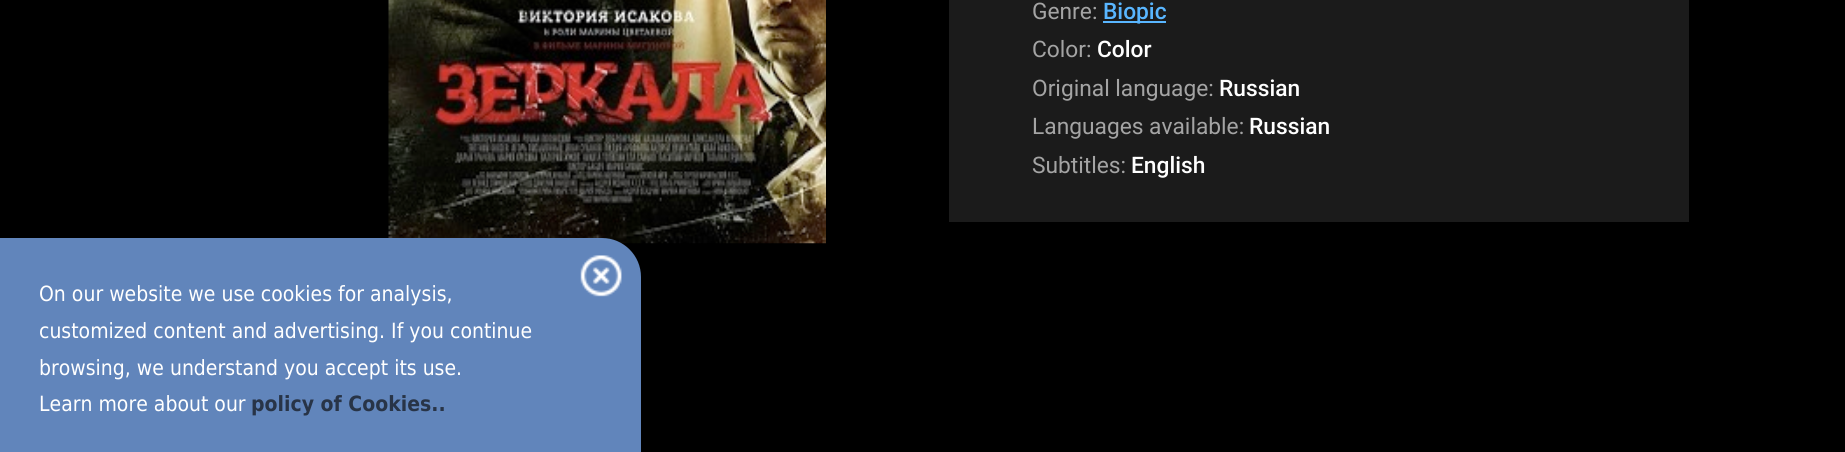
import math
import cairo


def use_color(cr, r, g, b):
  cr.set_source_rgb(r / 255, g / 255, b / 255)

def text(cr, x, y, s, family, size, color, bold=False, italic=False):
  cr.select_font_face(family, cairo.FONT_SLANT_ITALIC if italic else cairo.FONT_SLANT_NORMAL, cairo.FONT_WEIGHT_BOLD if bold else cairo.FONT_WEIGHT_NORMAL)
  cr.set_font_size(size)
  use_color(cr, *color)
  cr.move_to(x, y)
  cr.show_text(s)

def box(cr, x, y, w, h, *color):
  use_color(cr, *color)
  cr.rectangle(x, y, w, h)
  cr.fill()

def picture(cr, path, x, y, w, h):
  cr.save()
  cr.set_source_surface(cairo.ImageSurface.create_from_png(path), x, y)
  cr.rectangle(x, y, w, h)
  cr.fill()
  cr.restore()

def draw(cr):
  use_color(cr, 0, 0, 0)
  cr.paint()
  picture(cr, "img_01.png", 388, 0, 438, 244)
  box(cr, 949, 0, 740, 222, 27, 27, 27)
  box(cr, 1103, 21, 63, 2, 89, 182, 255)
  use_color(cr, 97, 133, 187)
  cr.new_path()
  cr.move_to(0, 238)
  cr.line_to(602, 238)
  cr.curve_to(623.5, 238, 641, 255.5, 641, 277)
  cr.line_to(641, 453)
  cr.line_to(0, 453)
  cr.close_path()
  cr.fill()
  picture(cr, "img_02.png", 580, 255, 42, 42)
  text(cr, 1032, 19, "Genre:", "Roboto", 22.75, (164, 164, 164))
  text(cr, 1103, 19, "Biopic", "Roboto Medium", 22.75, (89, 182, 255))
  text(cr, 1032, 57, "Color:", "Roboto", 22.75, (164, 164, 164))
  text(cr, 1097, 57, "Color", "Roboto Medium", 22.75, (255, 255, 255))
  text(cr, 1032, 96, "Original language:", "Roboto", 22.75, (164, 164, 164))
  text(cr, 1219, 96, "Russian", "Roboto Medium", 22.75, (255, 255, 255))
  text(cr, 1032, 134, "Languages available:", "Roboto", 22.75, (164, 164, 164))
  text(cr, 1249, 134, "Russian", "Roboto Medium", 22.75, (255, 255, 255))
  text(cr, 1032, 173, "Subtitles:", "Roboto", 22.75, (164, 164, 164))
  text(cr, 1131, 173, "English", "Roboto Medium", 22.75, (255, 255, 255))
  text(cr, 39, 301, "On our website we use cookies for analysis,", "DejaVu Sans", 21, (255, 255, 255))
  text(cr, 39, 338, "customized content and advertising. If you continue", "DejaVu Sans", 21, (255, 255, 255))
  text(cr, 39, 375, "browsing, we understand you accept its use.", "DejaVu Sans", 21, (255, 255, 255))
  text(cr, 39, 411, "Learn more about our", "DejaVu Sans", 21, (255, 255, 255))
  text(cr, 251, 411, "policy of Cookies..", "DejaVu Sans", 21, (40, 52, 71), bold=True)


surface = cairo.ImageSurface(cairo.FORMAT_RGB24, 1845, 452)
cr = cairo.Context(surface)
options = cairo.FontOptions()
options.set_hint_metrics(cairo.HINT_METRICS_OFF)
options.set_hint_style(cairo.HINT_STYLE_NONE)
cr.set_font_options(options)
cr.set_miter_limit(4)
draw(cr)
surface.write_to_png("out.png")
